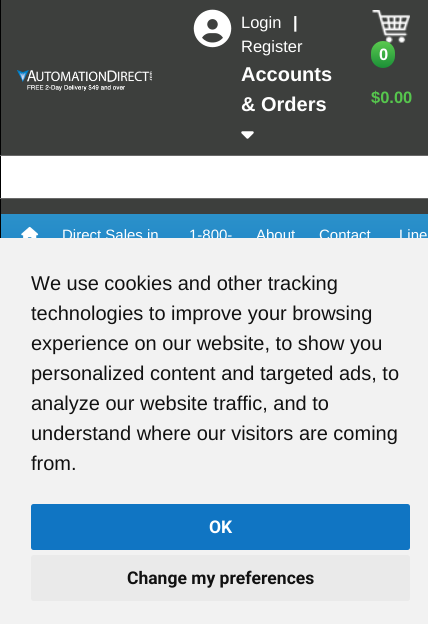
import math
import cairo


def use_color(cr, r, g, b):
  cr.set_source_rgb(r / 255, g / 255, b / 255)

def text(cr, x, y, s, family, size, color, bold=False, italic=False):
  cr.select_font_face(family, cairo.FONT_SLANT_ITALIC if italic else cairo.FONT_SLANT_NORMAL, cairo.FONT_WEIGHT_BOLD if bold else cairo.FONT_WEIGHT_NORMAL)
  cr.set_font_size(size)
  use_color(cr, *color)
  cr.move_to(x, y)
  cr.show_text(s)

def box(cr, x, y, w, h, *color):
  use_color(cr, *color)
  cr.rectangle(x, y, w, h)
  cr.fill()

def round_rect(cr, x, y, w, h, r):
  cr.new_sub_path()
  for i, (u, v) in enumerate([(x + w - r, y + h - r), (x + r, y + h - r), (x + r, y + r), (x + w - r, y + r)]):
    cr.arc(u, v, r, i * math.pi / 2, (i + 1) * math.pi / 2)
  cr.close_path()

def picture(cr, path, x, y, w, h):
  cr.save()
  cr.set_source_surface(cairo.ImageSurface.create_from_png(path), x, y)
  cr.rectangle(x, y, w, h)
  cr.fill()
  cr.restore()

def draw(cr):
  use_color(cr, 0, 0, 0)
  cr.paint()
  box(cr, 1, 0, 427, 214, 61, 63, 61)
  picture(cr, "img_01.png", 17, 70, 135, 21)
  picture(cr, "img_02.png", 193, 9, 39, 39)
  picture(cr, "img_03.png", 241, 131, 13, 8)
  picture(cr, "img_04.png", 372, 10, 38, 33)
  gradient = cairo.LinearGradient(383, 41, 383, 68)
  gradient.add_color_stop_rgba(0, 0.357, 0.792, 0.31, 1)
  gradient.add_color_stop_rgba(1, 0.106, 0.561, 0.216, 1)
  cr.set_source(gradient)
  round_rect(cr, 371, 41, 24, 27, 12)
  cr.fill()
  box(cr, 1, 156, 427, 42, 255, 255, 255)
  cr.new_path()
  cr.move_to(-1, 155.5)
  cr.line_to(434.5, 155.5)
  cr.line_to(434.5, 198.5)
  cr.line_to(-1, 198.5)
  cr.curve_to(-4, 198.5, -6.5, 196, -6.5, 193)
  cr.line_to(-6.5, 161)
  cr.curve_to(-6.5, 158, -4, 155.5, -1, 155.5)
  cr.close_path()
  use_color(cr, 105, 105, 105)
  cr.set_line_width(1)
  cr.stroke()
  gradient = cairo.LinearGradient(214, 214, 214, 339)
  gradient.add_color_stop_rgba(0, 0.169, 0.569, 0.792, 1)
  gradient.add_color_stop_rgba(1, 0.051, 0.447, 0.761, 1)
  cr.set_source(gradient)
  cr.rectangle(1, 214, 427, 24)
  cr.fill()
  picture(cr, "img_05.png", 21, 226, 18, 12)
  text(cr, 241, 28, "Login", "Liberation Sans", 16.5, (255, 255, 255))
  text(cr, 293, 28, "|", "Liberation Sans", 16.5, (255, 255, 255), bold=True)
  text(cr, 241, 52, "Register", "Liberation Sans", 16.5, (255, 255, 255))
  text(cr, 241, 81, "Accounts", "Liberation Sans", 20, (255, 255, 255), bold=True)
  text(cr, 241, 111, "& Orders", "Liberation Sans", 20, (255, 255, 255), bold=True)
  text(cr, 379, 60, "0", "Liberation Sans", 16.5, (255, 255, 255), bold=True)
  text(cr, 371, 103, "$0.00", "Liberation Sans", 16.5, (86, 198, 77), bold=True)
  text(cr, 62, 240, "Direct Sales in", "Liberation Sans", 15, (255, 255, 255))
  text(cr, 189, 240, "1-800-", "Liberation Sans", 15, (255, 255, 255))
  text(cr, 256, 240, "About", "Liberation Sans", 15, (255, 255, 255))
  text(cr, 319, 240, "Contact", "Liberation Sans", 15, (255, 255, 255))
  text(cr, 399, 240, "Line", "Liberation Sans", 15, (255, 255, 255))
  box(cr, 0, 238, 428, 386, 242, 242, 242)
  text(cr, 31, 290, "We use cookies and other tracking", "Liberation Sans", 20, (17, 17, 17))
  text(cr, 31, 320, "technologies to improve your browsing", "Liberation Sans", 20, (17, 17, 17))
  text(cr, 31, 350, "experience on our website, to show you", "Liberation Sans", 20, (17, 17, 17))
  text(cr, 31, 380, "personalized content and targeted ads, to", "Liberation Sans", 20, (17, 17, 17))
  text(cr, 31, 410, "analyze our website traffic, and to", "Liberation Sans", 20, (17, 17, 17))
  text(cr, 31, 440, "understand where our visitors are coming", "Liberation Sans", 20, (17, 17, 17))
  text(cr, 31, 470, "from.", "Liberation Sans", 20, (17, 17, 17))
  use_color(cr, 16, 117, 195)
  round_rect(cr, 31, 504, 379, 46, 2.5)
  cr.fill()
  text(cr, 209, 533, "OK", "Roboto", 17.5, (255, 255, 255), bold=True)
  use_color(cr, 234, 234, 234)
  round_rect(cr, 31, 555, 379, 46, 2.5)
  cr.fill()
  text(cr, 127, 584, "Change my preferences", "Roboto", 17.5, (17, 17, 17), bold=True)


surface = cairo.ImageSurface(cairo.FORMAT_RGB24, 428, 624)
cr = cairo.Context(surface)
options = cairo.FontOptions()
options.set_hint_metrics(cairo.HINT_METRICS_OFF)
options.set_hint_style(cairo.HINT_STYLE_NONE)
cr.set_font_options(options)
cr.set_miter_limit(4)
draw(cr)
surface.write_to_png("out.png")
